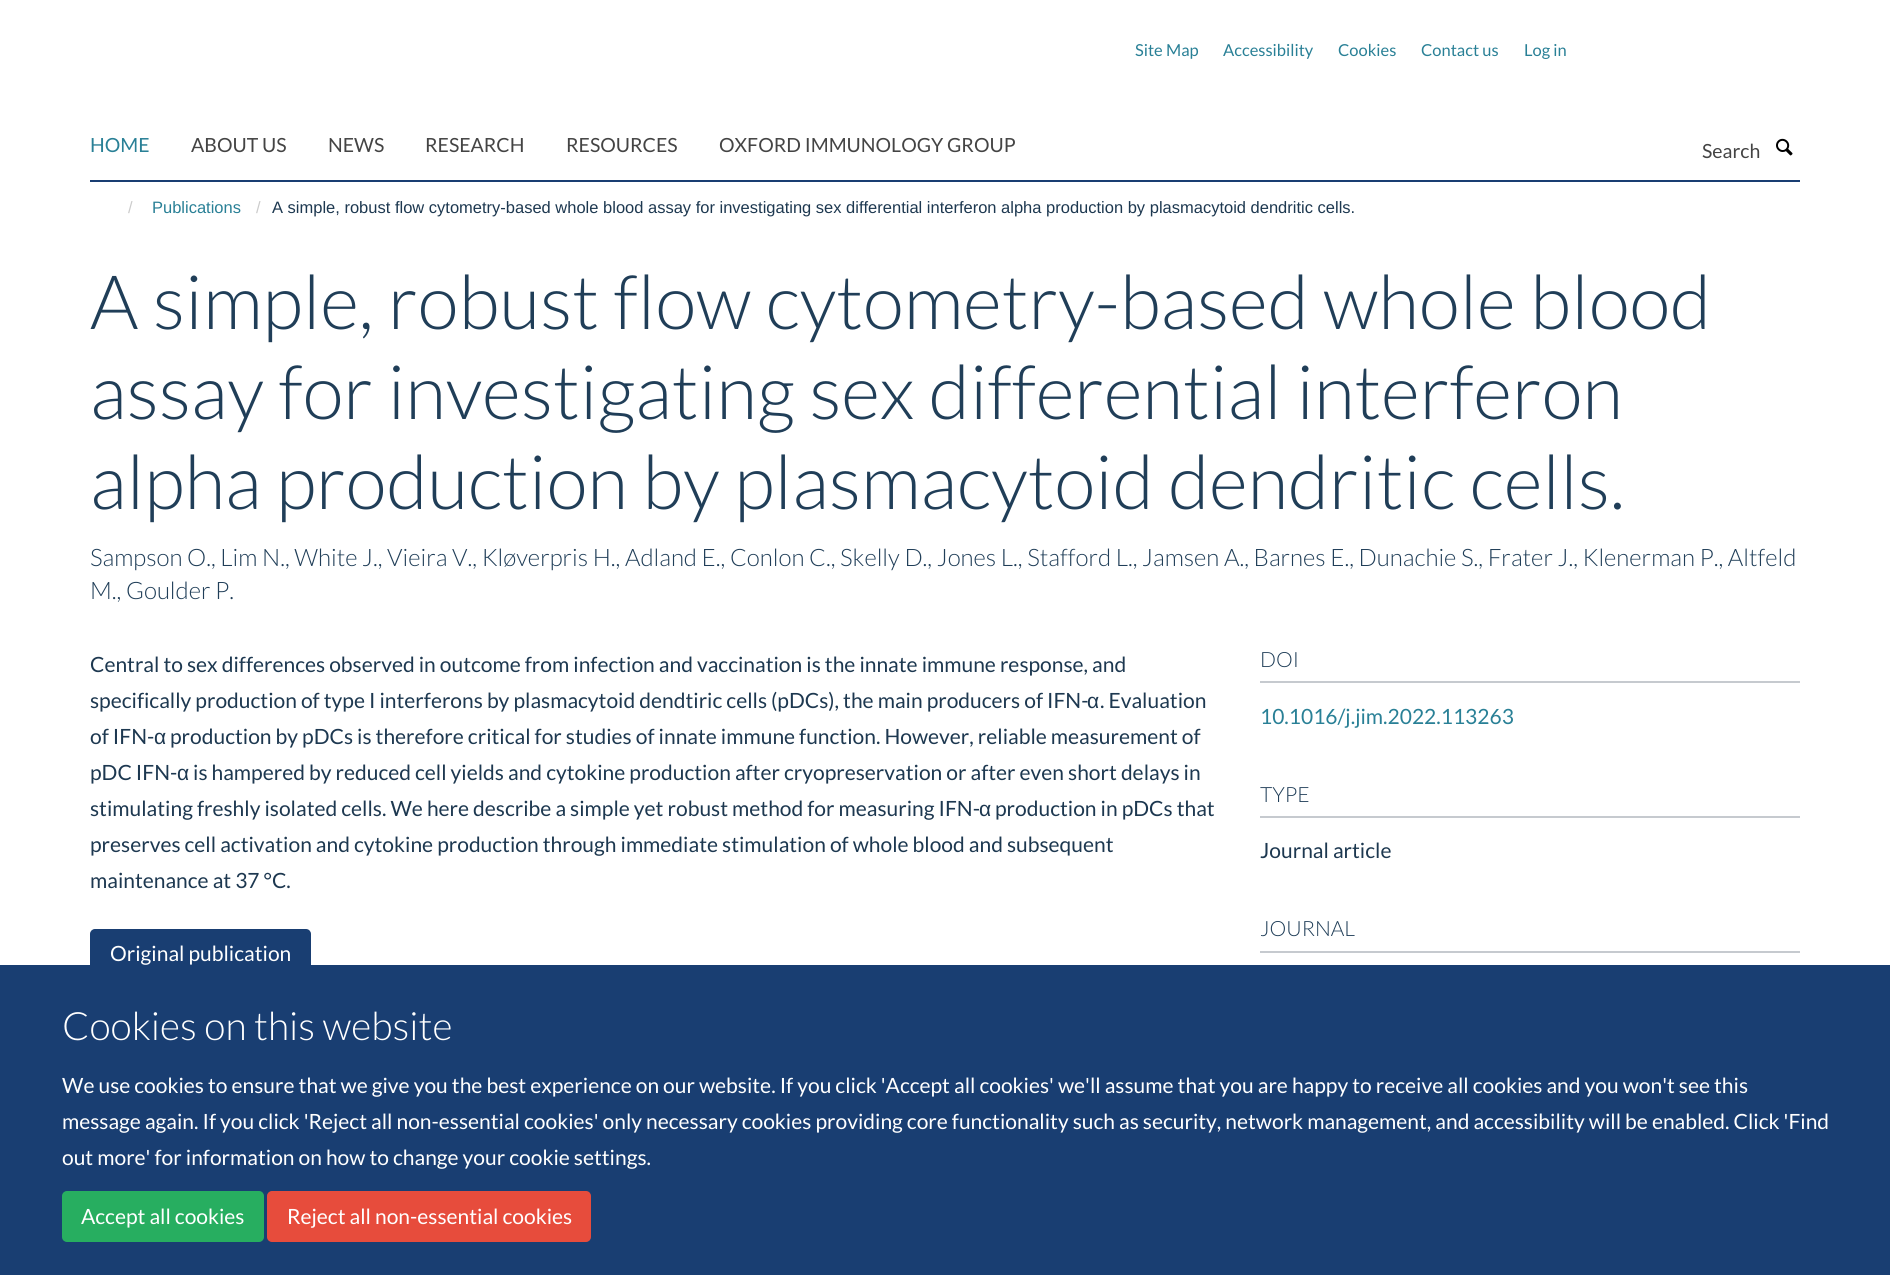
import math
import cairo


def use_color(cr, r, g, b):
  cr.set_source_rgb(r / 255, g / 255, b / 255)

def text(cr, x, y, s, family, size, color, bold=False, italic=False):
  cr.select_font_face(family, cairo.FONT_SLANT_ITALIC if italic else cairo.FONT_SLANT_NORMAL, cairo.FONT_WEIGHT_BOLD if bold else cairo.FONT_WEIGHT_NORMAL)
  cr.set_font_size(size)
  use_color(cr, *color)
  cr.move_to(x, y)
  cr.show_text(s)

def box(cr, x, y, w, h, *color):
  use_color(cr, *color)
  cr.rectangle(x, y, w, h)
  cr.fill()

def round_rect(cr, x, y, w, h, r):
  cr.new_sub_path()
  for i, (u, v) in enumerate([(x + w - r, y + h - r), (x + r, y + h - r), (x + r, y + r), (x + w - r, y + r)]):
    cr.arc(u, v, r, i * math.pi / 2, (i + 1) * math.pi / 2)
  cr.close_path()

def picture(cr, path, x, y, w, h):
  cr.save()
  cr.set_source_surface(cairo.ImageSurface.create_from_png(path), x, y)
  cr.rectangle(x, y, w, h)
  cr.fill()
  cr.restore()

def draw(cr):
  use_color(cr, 255, 255, 255)
  cr.paint()
  box(cr, 90, 180, 1710, 2, 25, 62, 114)
  picture(cr, "img_01.png", 1776, 138, 17, 18)
  round_rect(cr, 91, 930, 219, 49, 4)
  cr.fill_preserve()
  cr.stroke()
  box(cr, 1260, 681, 540, 2, 198, 202, 207)
  box(cr, 1260, 816, 540, 2, 198, 202, 207)
  box(cr, 1260, 951, 540, 2, 198, 202, 207)
  box(cr, 0, 965, 1890, 310, 25, 62, 114)
  use_color(cr, 39, 174, 96)
  round_rect(cr, 63, 1192, 200, 49, 4)
  cr.fill_preserve()
  cr.stroke()
  use_color(cr, 231, 76, 60)
  round_rect(cr, 268, 1192, 322, 49, 4)
  cr.fill_preserve()
  cr.stroke()
  text(cr, 1135, 56, "Site Map", "Lato", 16.5, (41, 128, 150))
  text(cr, 1223, 56, "Accessibility", "Lato", 16.5, (41, 128, 150))
  text(cr, 1338, 56, "Cookies", "Lato", 16.5, (41, 128, 150))
  text(cr, 1421, 56, "Contact us", "Lato", 16.5, (41, 128, 150))
  text(cr, 1524, 56, "Log in", "Lato", 16.5, (41, 128, 150))
  text(cr, 90, 152, "HOME", "Lato", 19.5, (41, 128, 150))
  text(cr, 191, 152, "ABOUT US", "Lato", 19.5, (68, 68, 68))
  text(cr, 328, 152, "NEWS", "Lato", 19.5, (68, 68, 68))
  text(cr, 425, 152, "RESEARCH", "Lato", 19.5, (68, 68, 68))
  text(cr, 566, 152, "RESOURCES", "Lato", 19.5, (68, 68, 68))
  text(cr, 719, 152, "OXFORD IMMUNOLOGY GROUP", "Lato", 19.5, (68, 68, 68))
  text(cr, 1702, 158, "Search", "Lato", 19.5, (68, 68, 68))
  text(cr, 128, 213, "/", "Liberation Sans", 16.5, (204, 204, 204))
  text(cr, 152, 213, "Publications", "Liberation Sans", 16.5, (41, 128, 150))
  text(cr, 256, 213, "/", "Liberation Sans", 16.5, (204, 204, 204))
  text(cr, 272, 213, "A simple, robust flow cytometry-based whole blood assay for investigating sex differential interferon alpha production by plasmacytoid dendritic cells.", "Liberation Sans", 16.5, (29, 56, 80))
  text(cr, 90, 329, "A simple, robust flow cytometry-based whole blood", "Lato Light", 75, (32, 62, 88))
  text(cr, 90, 419, "assay for investigating sex differential interferon", "Lato Light", 75, (32, 62, 88))
  text(cr, 90, 509, "alpha production by plasmacytoid dendritic cells.", "Lato Light", 75, (32, 62, 88))
  text(cr, 90, 566, "Sampson O., Lim N., White J., Vieira V., Kløverpris H., Adland E., Conlon C., Skelly D., Jones L., Stafford L., Jamsen A., Barnes E., Dunachie S., Frater J., Klenerman P., Altfeld", "Lato Light", 24, (32, 62, 88))
  text(cr, 90, 599, "M., Goulder P.", "Lato Light", 24, (32, 62, 88))
  text(cr, 90, 672, "Central to sex differences observed in outcome from infection and vaccination is the innate immune response, and", "Lato", 21, (29, 56, 80))
  text(cr, 90, 708, "specifically production of type I interferons by plasmacytoid dendtiric cells (pDCs), the main producers of IFN-", "Lato", 21, (29, 56, 80))
  text(cr, 1087, 708, "α", "Liberation Sans", 21, (29, 56, 80))
  text(cr, 1100, 708, ". Evaluation", "Lato", 21, (29, 56, 80))
  text(cr, 90, 744, "of IFN-", "Lato", 21, (29, 56, 80))
  text(cr, 154, 744, "α", "Liberation Sans", 21, (29, 56, 80))
  text(cr, 170, 744, "production by pDCs is therefore critical for studies of innate immune function. However, reliable measurement of", "Lato", 21, (29, 56, 80))
  text(cr, 90, 780, "pDC IFN-", "Lato", 21, (29, 56, 80))
  text(cr, 177, 780, "α", "Liberation Sans", 21, (29, 56, 80))
  text(cr, 193, 780, "is hampered by reduced cell yields and cytokine production after cryopreservation or after even short delays in", "Lato", 21, (29, 56, 80))
  text(cr, 90, 816, "stimulating freshly isolated cells. We here describe a simple yet robust method for measuring IFN-", "Lato", 21, (29, 56, 80))
  text(cr, 979, 816, "α", "Liberation Sans", 21, (29, 56, 80))
  text(cr, 995, 816, "production in pDCs that", "Lato", 21, (29, 56, 80))
  text(cr, 90, 852, "preserves cell activation and cytokine production through immediate stimulation of whole blood and subsequent", "Lato", 21, (29, 56, 80))
  text(cr, 90, 888, "maintenance at 37 °C.", "Lato", 21, (29, 56, 80))
  text(cr, 110, 961, "Original publication", "Lato", 21, (255, 255, 255))
  text(cr, 1260, 667, "DOI", "Lato Light", 21, (32, 62, 88))
  text(cr, 1260, 724, "10.1016/j.jim.2022.113263", "Lato", 21, (41, 128, 150))
  text(cr, 1260, 802, "TYPE", "Lato Light", 21, (32, 62, 88))
  text(cr, 1260, 858, "Journal article", "Lato", 21, (29, 56, 80))
  text(cr, 1260, 936, "JOURNAL", "Lato Light", 21, (32, 62, 88))
  text(cr, 62, 1040, "Cookies on this website", "Lato Light", 39, (255, 255, 255))
  text(cr, 62, 1093, "We use cookies to ensure that we give you the best experience on our website. If you click 'Accept all cookies' we'll assume that you are happy to receive all cookies and you won't see this", "Lato", 21, (255, 255, 255))
  text(cr, 62, 1129, "message again. If you click 'Reject all non-essential cookies' only necessary cookies providing core functionality such as security, network management, and accessibility will be enabled. Click 'Find", "Lato", 21, (255, 255, 255))
  text(cr, 62, 1165, "out more' for information on how to change your cookie settings.", "Lato", 21, (255, 255, 255))
  text(cr, 81, 1224, "Accept all cookies", "Lato", 21, (255, 255, 255))
  text(cr, 287, 1224, "Reject all non-essential cookies", "Lato", 21, (255, 255, 255))


surface = cairo.ImageSurface(cairo.FORMAT_RGB24, 1890, 1275)
cr = cairo.Context(surface)
options = cairo.FontOptions()
options.set_hint_metrics(cairo.HINT_METRICS_OFF)
options.set_hint_style(cairo.HINT_STYLE_NONE)
cr.set_font_options(options)
cr.set_miter_limit(4)
draw(cr)
surface.write_to_png("out.png")
